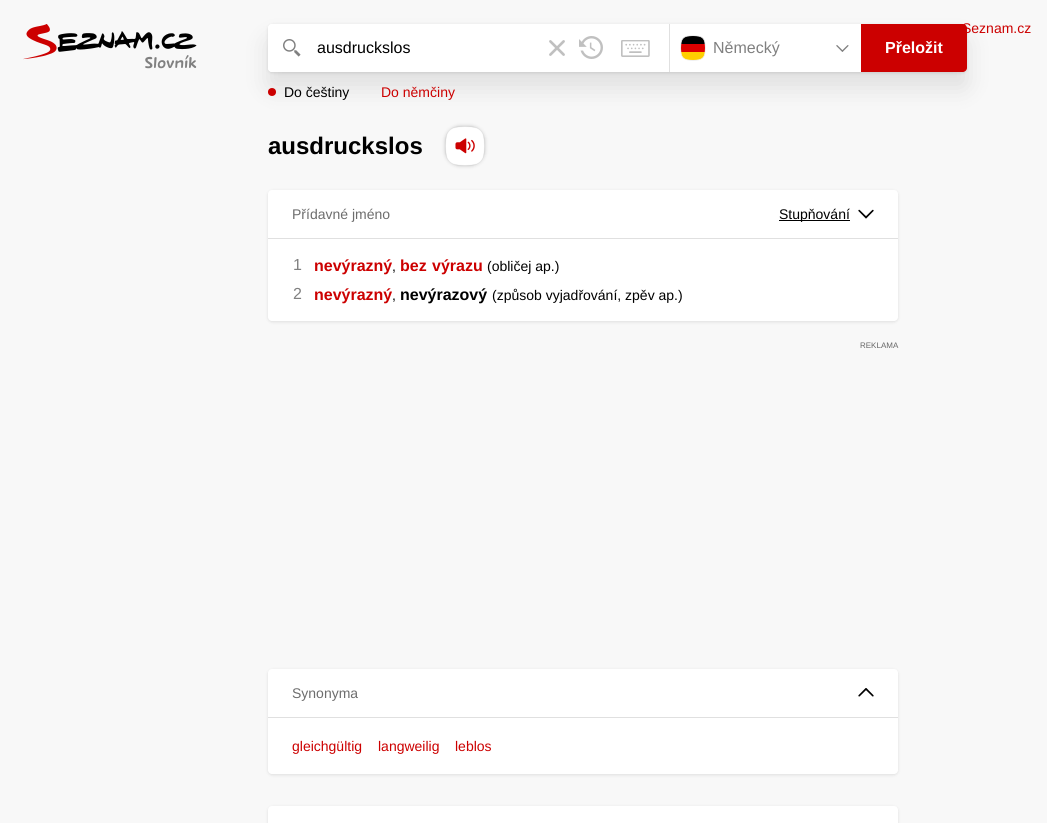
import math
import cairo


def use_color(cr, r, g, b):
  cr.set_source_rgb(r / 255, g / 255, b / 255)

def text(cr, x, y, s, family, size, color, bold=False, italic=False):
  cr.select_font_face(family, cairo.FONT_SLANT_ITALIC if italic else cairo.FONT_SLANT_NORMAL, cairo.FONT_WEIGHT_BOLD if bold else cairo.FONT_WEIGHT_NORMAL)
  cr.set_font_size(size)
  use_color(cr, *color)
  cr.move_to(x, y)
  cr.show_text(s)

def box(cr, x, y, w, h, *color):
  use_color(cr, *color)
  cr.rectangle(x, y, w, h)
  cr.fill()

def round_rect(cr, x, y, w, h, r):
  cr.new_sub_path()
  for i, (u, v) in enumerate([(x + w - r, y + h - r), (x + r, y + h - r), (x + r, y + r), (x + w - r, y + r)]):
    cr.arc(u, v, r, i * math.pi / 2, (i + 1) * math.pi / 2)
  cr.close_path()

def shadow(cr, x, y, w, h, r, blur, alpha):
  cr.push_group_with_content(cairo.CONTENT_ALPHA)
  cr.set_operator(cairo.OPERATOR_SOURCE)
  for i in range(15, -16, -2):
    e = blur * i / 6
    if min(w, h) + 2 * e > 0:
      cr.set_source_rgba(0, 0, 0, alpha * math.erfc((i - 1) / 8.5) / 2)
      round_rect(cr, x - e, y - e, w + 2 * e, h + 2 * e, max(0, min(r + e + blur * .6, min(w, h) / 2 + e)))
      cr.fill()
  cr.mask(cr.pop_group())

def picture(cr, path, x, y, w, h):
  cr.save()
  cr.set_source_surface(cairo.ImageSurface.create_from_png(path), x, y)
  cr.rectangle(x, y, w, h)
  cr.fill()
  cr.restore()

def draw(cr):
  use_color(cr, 248, 248, 248)
  cr.paint()
  picture(cr, "img_01.png", 23, 24, 174, 45)
  use_color(cr, 0, 0, 0)
  shadow(cr, 268, 25, 699, 48, 4, 1.5, 0.1)
  shadow(cr, 268, 40, 699, 48, 4, 12, 0.1)
  use_color(cr, 255, 255, 255)
  round_rect(cr, 268, 24, 699, 48, 4)
  cr.fill()
  round_rect(cr, 268, 24, 48, 48, 4)
  cr.fill()
  picture(cr, "img_02.png", 283, 39, 18, 18)
  picture(cr, "img_03.png", 549, 40, 16, 16)
  picture(cr, "img_04.png", 579, 36, 24, 23)
  picture(cr, "img_05.png", 621, 40, 29, 17)
  box(cr, 669, 24, 1, 48, 224, 224, 224)
  picture(cr, "img_06.png", 680, 35, 26, 26)
  picture(cr, "img_07.png", 836, 45, 13, 7)
  use_color(cr, 204, 0, 0)
  cr.new_path()
  cr.move_to(861, 24)
  cr.line_to(963, 24)
  cr.curve_to(965, 24, 967, 26, 967, 28)
  cr.line_to(967, 68)
  cr.curve_to(967, 70, 965, 72, 963, 72)
  cr.line_to(861, 72)
  cr.close_path()
  cr.fill()
  cr.arc(272, 92, 4, 0, 2 * math.pi)
  cr.fill()
  use_color(cr, 128, 128, 128)
  shadow(cr, 447, 128, 36, 36, 13, 2.5, 1)
  picture(cr, "img_08.png", 445, 126, 40, 40)
  use_color(cr, 0, 0, 0)
  shadow(cr, 268, 191, 630, 131, 4, 1.5, 0.1)
  use_color(cr, 255, 255, 255)
  round_rect(cr, 268, 190, 630, 131, 4)
  cr.fill()
  box(cr, 268, 238, 630, 1, 224, 224, 224)
  box(cr, 779, 220, 71, 1, 0, 0, 0)
  picture(cr, "img_09.png", 858, 209, 16, 10)
  use_color(cr, 0, 0, 0)
  shadow(cr, 268, 670, 630, 105, 4, 1.5, 0.1)
  use_color(cr, 255, 255, 255)
  round_rect(cr, 268, 669, 630, 105, 4)
  cr.fill()
  box(cr, 268, 717, 630, 1, 224, 224, 224)
  picture(cr, "img_10.png", 858, 688, 16, 9)
  use_color(cr, 0, 0, 0)
  shadow(cr, 268, 807, 630, 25, 4, 1.5, 0.1)
  use_color(cr, 255, 255, 255)
  round_rect(cr, 268, 806, 630, 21, 4)
  cr.fill()
  text(cr, 317, 53, "ausdruckslos", "Liberation Sans", 16, (0, 0, 0))
  text(cr, 713, 53, "Německý", "Liberation Sans", 16, (128, 128, 128))
  text(cr, 885, 53, "Přeložit", "Liberation Sans", 16, (255, 255, 255), bold=True)
  text(cr, 284, 97, "Do češtiny", "Liberation Sans", 14, (0, 0, 0))
  text(cr, 381, 97, "Do němčiny", "Liberation Sans", 14, (204, 0, 0))
  text(cr, 962, 33, "Seznam.cz", "Liberation Sans", 14, (204, 0, 0))
  text(cr, 268, 154, "ausdruckslos", "Liberation Sans", 24, (0, 0, 0), bold=True)
  text(cr, 292, 219, "Přídavné jméno", "Liberation Sans", 14, (109, 109, 109))
  text(cr, 779, 219, "Stupňování", "Liberation Sans", 14, (0, 0, 0))
  text(cr, 293, 270, "1", "Liberation Sans", 16, (128, 128, 128))
  text(cr, 314, 271, "nevýrazný", "Liberation Sans", 16, (204, 0, 0), bold=True)
  text(cr, 392, 271, ",", "Liberation Sans", 14, (0, 0, 0))
  text(cr, 400, 271, "bez", "Liberation Sans", 16, (204, 0, 0), bold=True)
  text(cr, 432, 271, "výrazu", "Liberation Sans", 16, (204, 0, 0), bold=True)
  text(cr, 487, 271, "(obličej ap.)", "Liberation Sans", 14, (0, 0, 0))
  text(cr, 293, 299, "2", "Liberation Sans", 16, (128, 128, 128))
  text(cr, 314, 300, "nevýrazný", "Liberation Sans", 16, (204, 0, 0), bold=True)
  text(cr, 392, 300, ",", "Liberation Sans", 14, (0, 0, 0))
  text(cr, 400, 300, "nevýrazový", "Liberation Sans", 16, (0, 0, 0), bold=True)
  text(cr, 492, 300, "(způsob vyjadřování, zpěv ap.)", "Liberation Sans", 14, (0, 0, 0))
  text(cr, 860, 348, "REKLAMA", "Liberation Sans", 8, (102, 102, 102))
  text(cr, 292, 698, "Synonyma", "Liberation Sans", 14, (109, 109, 109))
  text(cr, 292, 751, "gleichgültig", "Liberation Sans", 14, (204, 0, 0))
  text(cr, 378, 751, "langweilig", "Liberation Sans", 14, (204, 0, 0))
  text(cr, 455, 751, "leblos", "Liberation Sans", 14, (204, 0, 0))


surface = cairo.ImageSurface(cairo.FORMAT_RGB24, 1047, 823)
cr = cairo.Context(surface)
options = cairo.FontOptions()
options.set_hint_metrics(cairo.HINT_METRICS_OFF)
options.set_hint_style(cairo.HINT_STYLE_NONE)
cr.set_font_options(options)
cr.set_miter_limit(4)
draw(cr)
surface.write_to_png("out.png")
